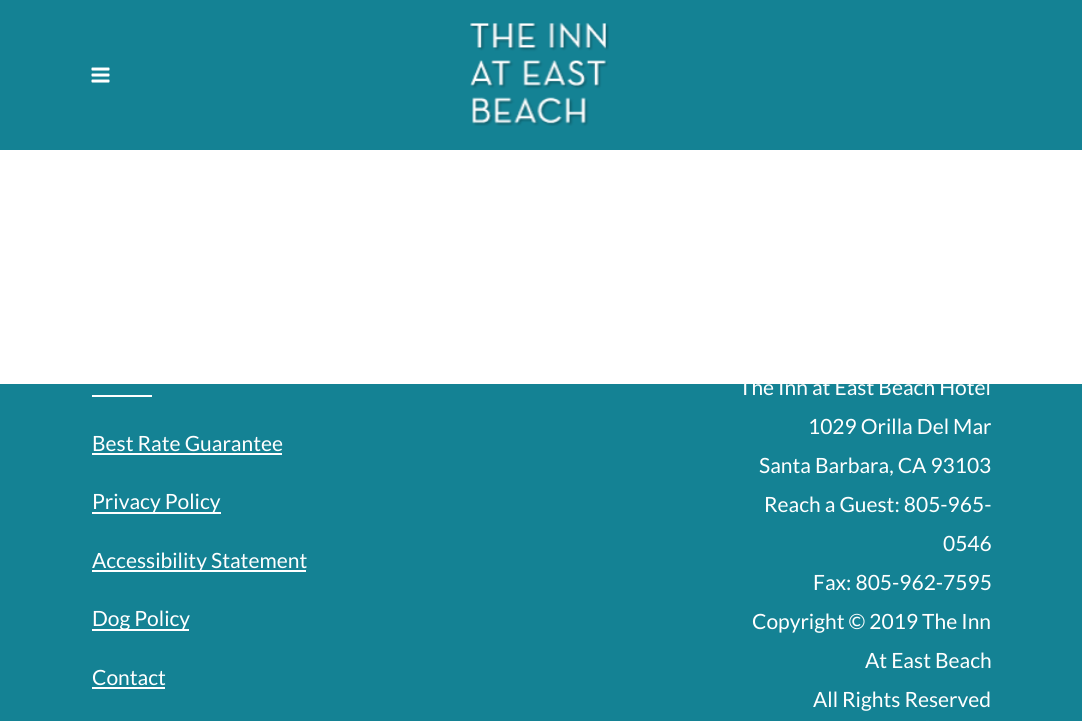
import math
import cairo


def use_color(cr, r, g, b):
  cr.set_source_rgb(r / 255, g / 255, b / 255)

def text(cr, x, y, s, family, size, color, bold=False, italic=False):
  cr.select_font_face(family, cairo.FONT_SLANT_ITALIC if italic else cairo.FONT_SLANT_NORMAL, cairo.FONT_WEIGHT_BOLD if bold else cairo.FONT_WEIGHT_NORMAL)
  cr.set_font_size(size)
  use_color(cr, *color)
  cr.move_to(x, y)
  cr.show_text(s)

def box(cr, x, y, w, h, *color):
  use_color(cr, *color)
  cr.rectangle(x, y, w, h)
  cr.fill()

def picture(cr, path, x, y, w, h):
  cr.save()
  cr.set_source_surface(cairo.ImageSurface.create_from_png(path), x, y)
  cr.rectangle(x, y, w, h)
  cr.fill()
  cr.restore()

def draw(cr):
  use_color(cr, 20, 130, 148)
  cr.paint()
  picture(cr, "img_01.png", 91, 67, 19, 16)
  picture(cr, "img_02.png", 470, 22, 139, 104)
  box(cr, 0, 150, 1082, 234, 255, 255, 255)
  box(cr, 92, 395, 60, 2, 255, 255, 255)
  box(cr, 92, 453, 190, 2, 255, 255, 255)
  box(cr, 92, 512, 129, 2, 255, 255, 255)
  box(cr, 92, 570, 214, 2, 255, 255, 255)
  box(cr, 92, 629, 97, 2, 255, 255, 255)
  box(cr, 92, 687, 73, 2, 255, 255, 255)
  picture(cr, "img_03.png", 926, 720, 3, 1)
  text(cr, 92, 451, "Best Rate Guarantee", "Lato", 21, (255, 255, 255))
  text(cr, 92, 509, "Privacy Policy", "Lato", 21, (255, 255, 255))
  text(cr, 92, 568, "Accessibility Statement", "Lato", 21, (255, 255, 255))
  text(cr, 92, 626, "Dog Policy", "Lato", 21, (255, 255, 255))
  text(cr, 92, 685, "Contact", "Lato", 21, (255, 255, 255))
  text(cr, 739, 395, "The Inn at East Beach Hotel", "Lato", 21, (255, 255, 255))
  text(cr, 808, 434, "1029 Orilla Del Mar", "Lato", 21, (255, 255, 255))
  text(cr, 759, 473, "Santa Barbara, CA 93103", "Lato", 21, (255, 255, 255))
  text(cr, 764, 512, "Reach a Guest: 805-965-", "Lato", 21, (255, 255, 255))
  text(cr, 943, 551, "0546", "Lato", 21, (255, 255, 255))
  text(cr, 813, 590, "Fax: 805-962-7595", "Lato", 21, (255, 255, 255))
  text(cr, 752, 629, "Copyright © 2019 The Inn", "Lato", 21, (255, 255, 255))
  text(cr, 865, 668, "At East Beach", "Lato", 21, (255, 255, 255))
  text(cr, 813, 707, "All Rights Reserved", "Lato", 21, (255, 255, 255))


surface = cairo.ImageSurface(cairo.FORMAT_RGB24, 1082, 721)
cr = cairo.Context(surface)
options = cairo.FontOptions()
options.set_hint_metrics(cairo.HINT_METRICS_OFF)
options.set_hint_style(cairo.HINT_STYLE_NONE)
cr.set_font_options(options)
cr.set_miter_limit(4)
draw(cr)
surface.write_to_png("out.png")
